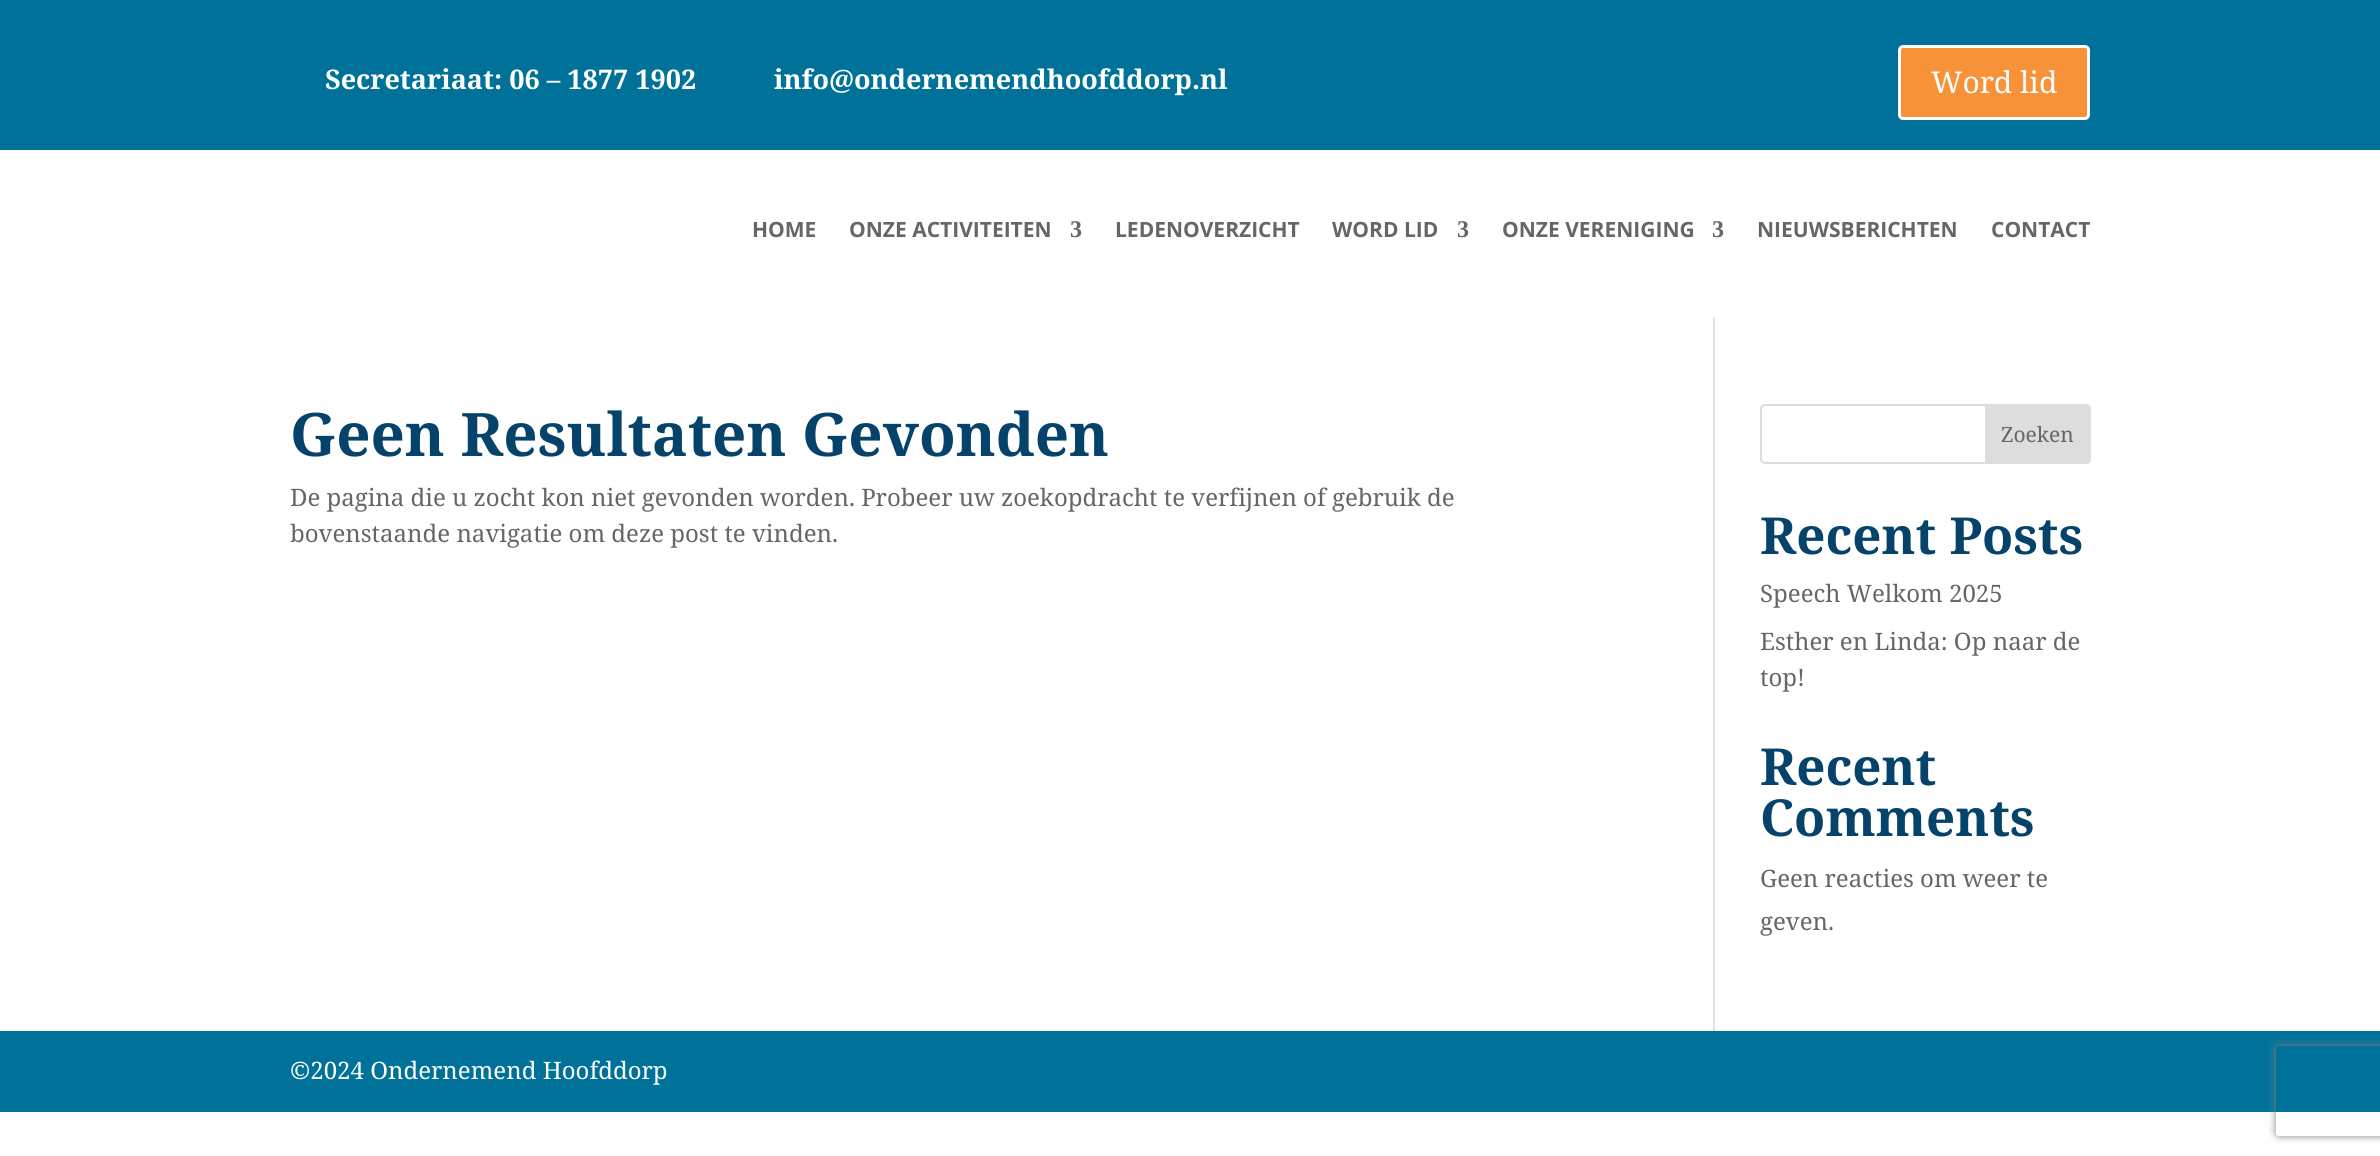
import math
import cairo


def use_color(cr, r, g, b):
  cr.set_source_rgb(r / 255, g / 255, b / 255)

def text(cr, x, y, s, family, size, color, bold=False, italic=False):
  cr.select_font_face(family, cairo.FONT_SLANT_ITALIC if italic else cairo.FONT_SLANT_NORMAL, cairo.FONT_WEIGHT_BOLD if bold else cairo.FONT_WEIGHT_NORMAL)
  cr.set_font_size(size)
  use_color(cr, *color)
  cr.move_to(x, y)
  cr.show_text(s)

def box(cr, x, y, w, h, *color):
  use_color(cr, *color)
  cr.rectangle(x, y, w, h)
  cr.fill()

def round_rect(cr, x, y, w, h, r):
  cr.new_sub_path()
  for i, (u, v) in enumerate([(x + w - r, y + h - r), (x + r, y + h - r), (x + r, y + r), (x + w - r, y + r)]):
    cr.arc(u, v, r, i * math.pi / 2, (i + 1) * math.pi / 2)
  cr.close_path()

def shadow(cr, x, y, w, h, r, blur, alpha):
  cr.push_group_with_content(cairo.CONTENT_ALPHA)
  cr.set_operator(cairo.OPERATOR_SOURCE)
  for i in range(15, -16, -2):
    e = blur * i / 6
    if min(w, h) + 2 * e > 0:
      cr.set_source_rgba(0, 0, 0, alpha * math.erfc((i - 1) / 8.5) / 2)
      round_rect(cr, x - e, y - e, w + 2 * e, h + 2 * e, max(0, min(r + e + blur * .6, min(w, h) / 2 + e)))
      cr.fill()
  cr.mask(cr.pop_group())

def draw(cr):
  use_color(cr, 255, 255, 255)
  cr.paint()
  box(cr, 0, 0, 2380, 150, 0, 114, 153)
  use_color(cr, 247, 146, 57)
  round_rect(cr, 1899.5, 46.5, 189, 72, 3.5)
  cr.fill_preserve()
  use_color(cr, 255, 255, 255)
  cr.set_line_width(3)
  cr.stroke()
  box(cr, 1713, 317, 2, 714, 226, 226, 226)
  round_rect(cr, 1761, 405, 329, 58, 4)
  use_color(cr, 221, 221, 221)
  cr.set_line_width(2)
  cr.stroke()
  cr.new_path()
  cr.move_to(1986, 405)
  cr.line_to(2086, 405)
  cr.curve_to(2088, 405, 2090, 407, 2090, 409)
  cr.line_to(2090, 459)
  cr.curve_to(2090, 461, 2088, 463, 2086, 463)
  cr.line_to(1986, 463)
  cr.close_path()
  cr.fill_preserve()
  cr.stroke()
  box(cr, 0, 1031, 2380, 81, 0, 114, 153)
  cr.save()
  cr.set_fill_rule(cairo.FILL_RULE_EVEN_ODD)
  cr.new_path()
  cr.move_to(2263, 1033)
  cr.line_to(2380, 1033)
  cr.line_to(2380, 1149)
  cr.line_to(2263, 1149)
  cr.close_path()
  cr.move_to(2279, 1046)
  cr.line_to(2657, 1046)
  cr.curve_to(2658.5, 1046, 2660, 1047.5, 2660, 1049)
  cr.line_to(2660, 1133)
  cr.curve_to(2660, 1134.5, 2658.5, 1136, 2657, 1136)
  cr.line_to(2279, 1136)
  cr.curve_to(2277.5, 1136, 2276, 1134.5, 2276, 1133)
  cr.line_to(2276, 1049)
  cr.curve_to(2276, 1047.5, 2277.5, 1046, 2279, 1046)
  cr.close_path()
  cr.clip()
  use_color(cr, 128, 128, 128)
  shadow(cr, 2276, 1046, 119, 90, 3, 4, 1)
  cr.restore()
  text(cr, 325, 89, "Secretariaat: 06 – 1877 1902", "Noto Serif", 27, (255, 255, 255), bold=True)
  text(cr, 774, 89, "info@ondernemendhoofddorp.nl", "Noto Serif", 27, (255, 255, 255), bold=True)
  text(cr, 1931, 93, "Word lid", "Noto Serif", 30, (255, 255, 255))
  text(cr, 752, 237, "HOME", "Open Sans", 21, (102, 102, 102), bold=True)
  text(cr, 849, 237, "ONZE ACTIVITEITEN", "Open Sans", 21, (102, 102, 102), bold=True)
  text(cr, 1070, 237, "3", "Liberation Serif", 24, (102, 102, 102), bold=True)
  text(cr, 1115, 237, "LEDENOVERZICHT", "Open Sans", 21, (102, 102, 102), bold=True)
  text(cr, 1332, 237, "WORD LID", "Open Sans", 21, (102, 102, 102), bold=True)
  text(cr, 1457, 237, "3", "Liberation Serif", 24, (102, 102, 102), bold=True)
  text(cr, 1502, 237, "ONZE VERENIGING", "Open Sans", 21, (102, 102, 102), bold=True)
  text(cr, 1712, 237, "3", "Liberation Serif", 24, (102, 102, 102), bold=True)
  text(cr, 1757, 237, "NIEUWSBERICHTEN", "Open Sans", 21, (102, 102, 102), bold=True)
  text(cr, 1991, 237, "CONTACT", "Open Sans", 21, (102, 102, 102), bold=True)
  text(cr, 290, 456, "Geen Resultaten Gevonden", "Noto Serif", 60, (6, 67, 107), bold=True)
  text(cr, 290, 506, "De pagina die u zocht kon niet gevonden worden. Probeer uw zoekopdracht te verfijnen of gebruik de", "Noto Serif", 24, (102, 102, 102))
  text(cr, 290, 542, "bovenstaande navigatie om deze post te vinden.", "Noto Serif", 24, (102, 102, 102))
  text(cr, 2001, 442, "Zoeken", "Noto Serif", 21, (102, 102, 102))
  text(cr, 1760, 554, "Recent Posts", "Noto Serif", 51, (6, 67, 107), bold=True)
  text(cr, 1760, 602, "Speech Welkom 2025", "Noto Serif", 24, (102, 102, 102))
  text(cr, 1760, 650, "Esther en Linda: Op naar de", "Noto Serif", 24, (102, 102, 102))
  text(cr, 1760, 686, "top!", "Noto Serif", 24, (102, 102, 102))
  text(cr, 1760, 785, "Recent", "Noto Serif", 51, (6, 67, 107), bold=True)
  text(cr, 1760, 836, "Comments", "Noto Serif", 51, (6, 67, 107), bold=True)
  text(cr, 1760, 887, "Geen reacties om weer te", "Noto Serif", 24, (102, 102, 102))
  text(cr, 1760, 930, "geven.", "Noto Serif", 24, (102, 102, 102))
  text(cr, 290, 1079, "©2024 Ondernemend Hoofddorp", "Noto Serif", 24, (255, 255, 255))


surface = cairo.ImageSurface(cairo.FORMAT_RGB24, 2380, 1156)
cr = cairo.Context(surface)
options = cairo.FontOptions()
options.set_hint_metrics(cairo.HINT_METRICS_OFF)
options.set_hint_style(cairo.HINT_STYLE_NONE)
cr.set_font_options(options)
cr.set_miter_limit(4)
draw(cr)
surface.write_to_png("out.png")
